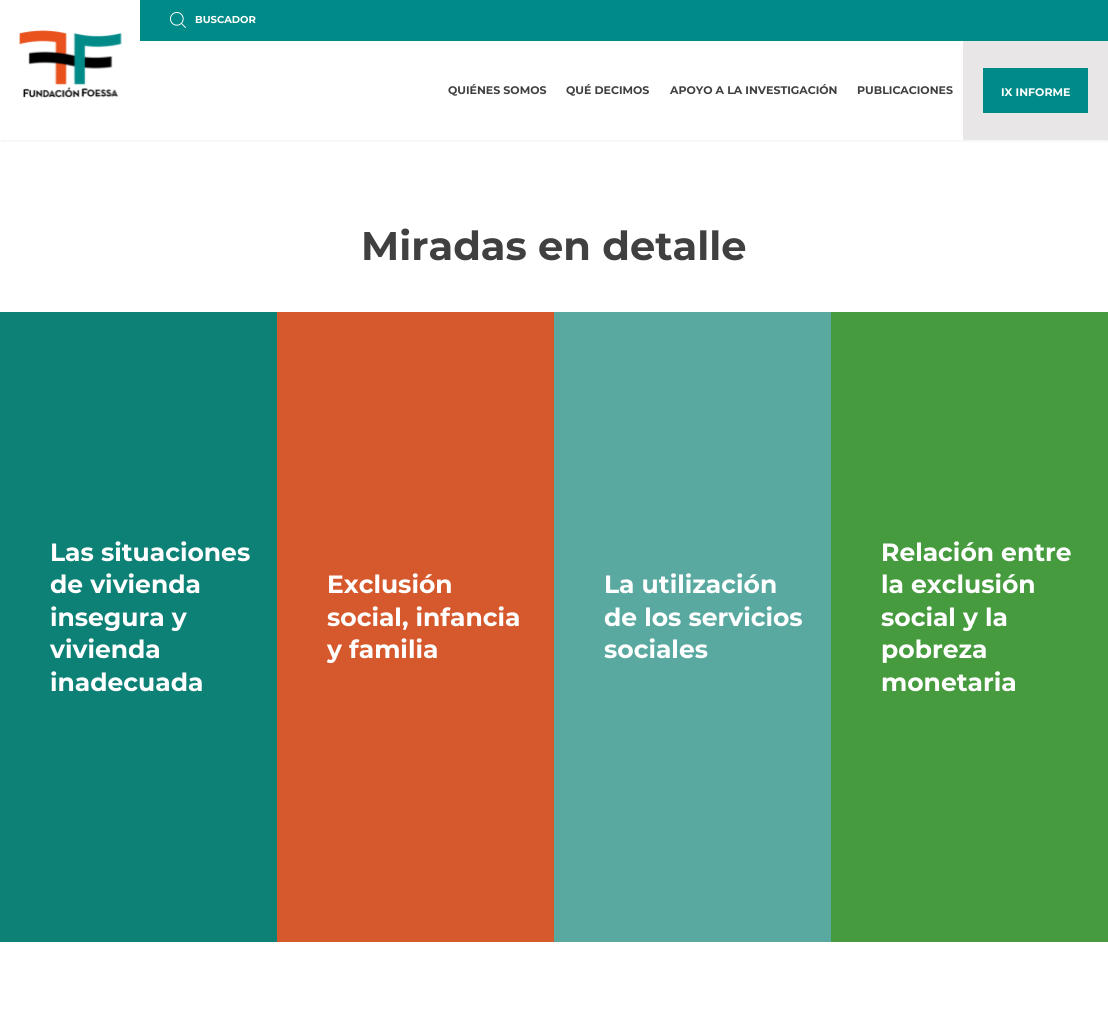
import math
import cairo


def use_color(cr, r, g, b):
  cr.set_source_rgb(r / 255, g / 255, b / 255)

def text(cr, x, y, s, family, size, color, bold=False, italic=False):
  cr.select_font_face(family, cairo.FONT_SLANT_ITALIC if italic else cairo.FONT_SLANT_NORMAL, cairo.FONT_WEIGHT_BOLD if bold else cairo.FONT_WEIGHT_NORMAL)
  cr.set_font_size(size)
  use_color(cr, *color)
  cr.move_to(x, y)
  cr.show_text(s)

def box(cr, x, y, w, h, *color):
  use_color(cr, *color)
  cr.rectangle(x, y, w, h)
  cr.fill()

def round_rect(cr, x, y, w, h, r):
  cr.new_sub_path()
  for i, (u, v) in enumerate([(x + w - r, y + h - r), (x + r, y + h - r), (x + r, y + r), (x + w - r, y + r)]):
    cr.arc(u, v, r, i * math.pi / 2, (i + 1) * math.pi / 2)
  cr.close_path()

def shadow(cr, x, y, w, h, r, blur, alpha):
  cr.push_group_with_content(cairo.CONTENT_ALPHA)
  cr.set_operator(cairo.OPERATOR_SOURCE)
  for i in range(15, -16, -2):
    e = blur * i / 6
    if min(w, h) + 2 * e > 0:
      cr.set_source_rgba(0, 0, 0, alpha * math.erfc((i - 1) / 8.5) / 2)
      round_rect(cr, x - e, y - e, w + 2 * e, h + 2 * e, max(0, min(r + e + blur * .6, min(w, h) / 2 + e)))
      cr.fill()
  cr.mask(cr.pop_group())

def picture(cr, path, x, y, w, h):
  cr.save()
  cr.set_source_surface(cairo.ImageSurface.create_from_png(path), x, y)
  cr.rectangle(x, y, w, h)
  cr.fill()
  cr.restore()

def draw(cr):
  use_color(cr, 255, 255, 255)
  cr.paint()
  cr.save()
  cr.rectangle(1, 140, 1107, 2)
  cr.clip()
  use_color(cr, 0, 0, 0)
  shadow(cr, 1, 0, 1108, 140, 0, 2.5, 0.1)
  cr.restore()
  picture(cr, "img_01.png", 19, 30, 103, 68)
  box(cr, 140, 0, 968, 41, 0, 138, 136)
  picture(cr, "img_02.png", 170, 12, 16, 16)
  box(cr, 963, 41, 145, 99, 232, 230, 230)
  box(cr, 983, 68, 105, 45, 0, 138, 136)
  box(cr, 0, 312, 277, 630, 13, 129, 118)
  box(cr, 277, 312, 277, 630, 214, 89, 46)
  box(cr, 554, 312, 277, 630, 90, 169, 161)
  box(cr, 831, 312, 277, 630, 71, 155, 63)
  text(cr, 195, 23, "BUSCADOR", "Montserrat", 10, (255, 255, 255), bold=True)
  text(cr, 448, 94, "QUIÉNES SOMOS", "Montserrat", 11, (64, 64, 64), bold=True)
  text(cr, 566, 94, "QUÉ DECIMOS", "Montserrat", 11, (64, 64, 64), bold=True)
  text(cr, 670, 94, "APOYO A LA INVESTIGACIÓN", "Montserrat", 11, (64, 64, 64), bold=True)
  text(cr, 857, 94, "PUBLICACIONES", "Montserrat", 11, (64, 64, 64), bold=True)
  text(cr, 1001, 96, "IX INFORME", "Montserrat", 11, (255, 255, 255), bold=True)
  text(cr, 361, 260, "Miradas en detalle", "Montserrat", 40, (64, 64, 64), bold=True)
  text(cr, 50, 561, "Las situaciones", "Montserrat", 25, (255, 255, 255), bold=True)
  text(cr, 50, 593, "de vivienda", "Montserrat", 25, (255, 255, 255), bold=True)
  text(cr, 50, 626, "insegura y", "Montserrat", 25, (255, 255, 255), bold=True)
  text(cr, 50, 658, "vivienda", "Montserrat", 25, (255, 255, 255), bold=True)
  text(cr, 50, 691, "inadecuada", "Montserrat", 25, (255, 255, 255), bold=True)
  text(cr, 327, 593, "Exclusión", "Montserrat", 25, (255, 255, 255), bold=True)
  text(cr, 327, 626, "social, infancia", "Montserrat", 25, (255, 255, 255), bold=True)
  text(cr, 327, 658, "y familia", "Montserrat", 25, (255, 255, 255), bold=True)
  text(cr, 604, 593, "La utilización", "Montserrat", 25, (255, 255, 255), bold=True)
  text(cr, 604, 626, "de los servicios", "Montserrat", 25, (255, 255, 255), bold=True)
  text(cr, 604, 658, "sociales", "Montserrat", 25, (255, 255, 255), bold=True)
  text(cr, 881, 561, "Relación entre", "Montserrat", 25, (255, 255, 255), bold=True)
  text(cr, 881, 593, "la exclusión", "Montserrat", 25, (255, 255, 255), bold=True)
  text(cr, 881, 626, "social y la", "Montserrat", 25, (255, 255, 255), bold=True)
  text(cr, 881, 658, "pobreza", "Montserrat", 25, (255, 255, 255), bold=True)
  text(cr, 881, 691, "monetaria", "Montserrat", 25, (255, 255, 255), bold=True)


surface = cairo.ImageSurface(cairo.FORMAT_RGB24, 1108, 1017)
cr = cairo.Context(surface)
options = cairo.FontOptions()
options.set_hint_metrics(cairo.HINT_METRICS_OFF)
options.set_hint_style(cairo.HINT_STYLE_NONE)
cr.set_font_options(options)
cr.set_miter_limit(4)
draw(cr)
surface.write_to_png("out.png")
